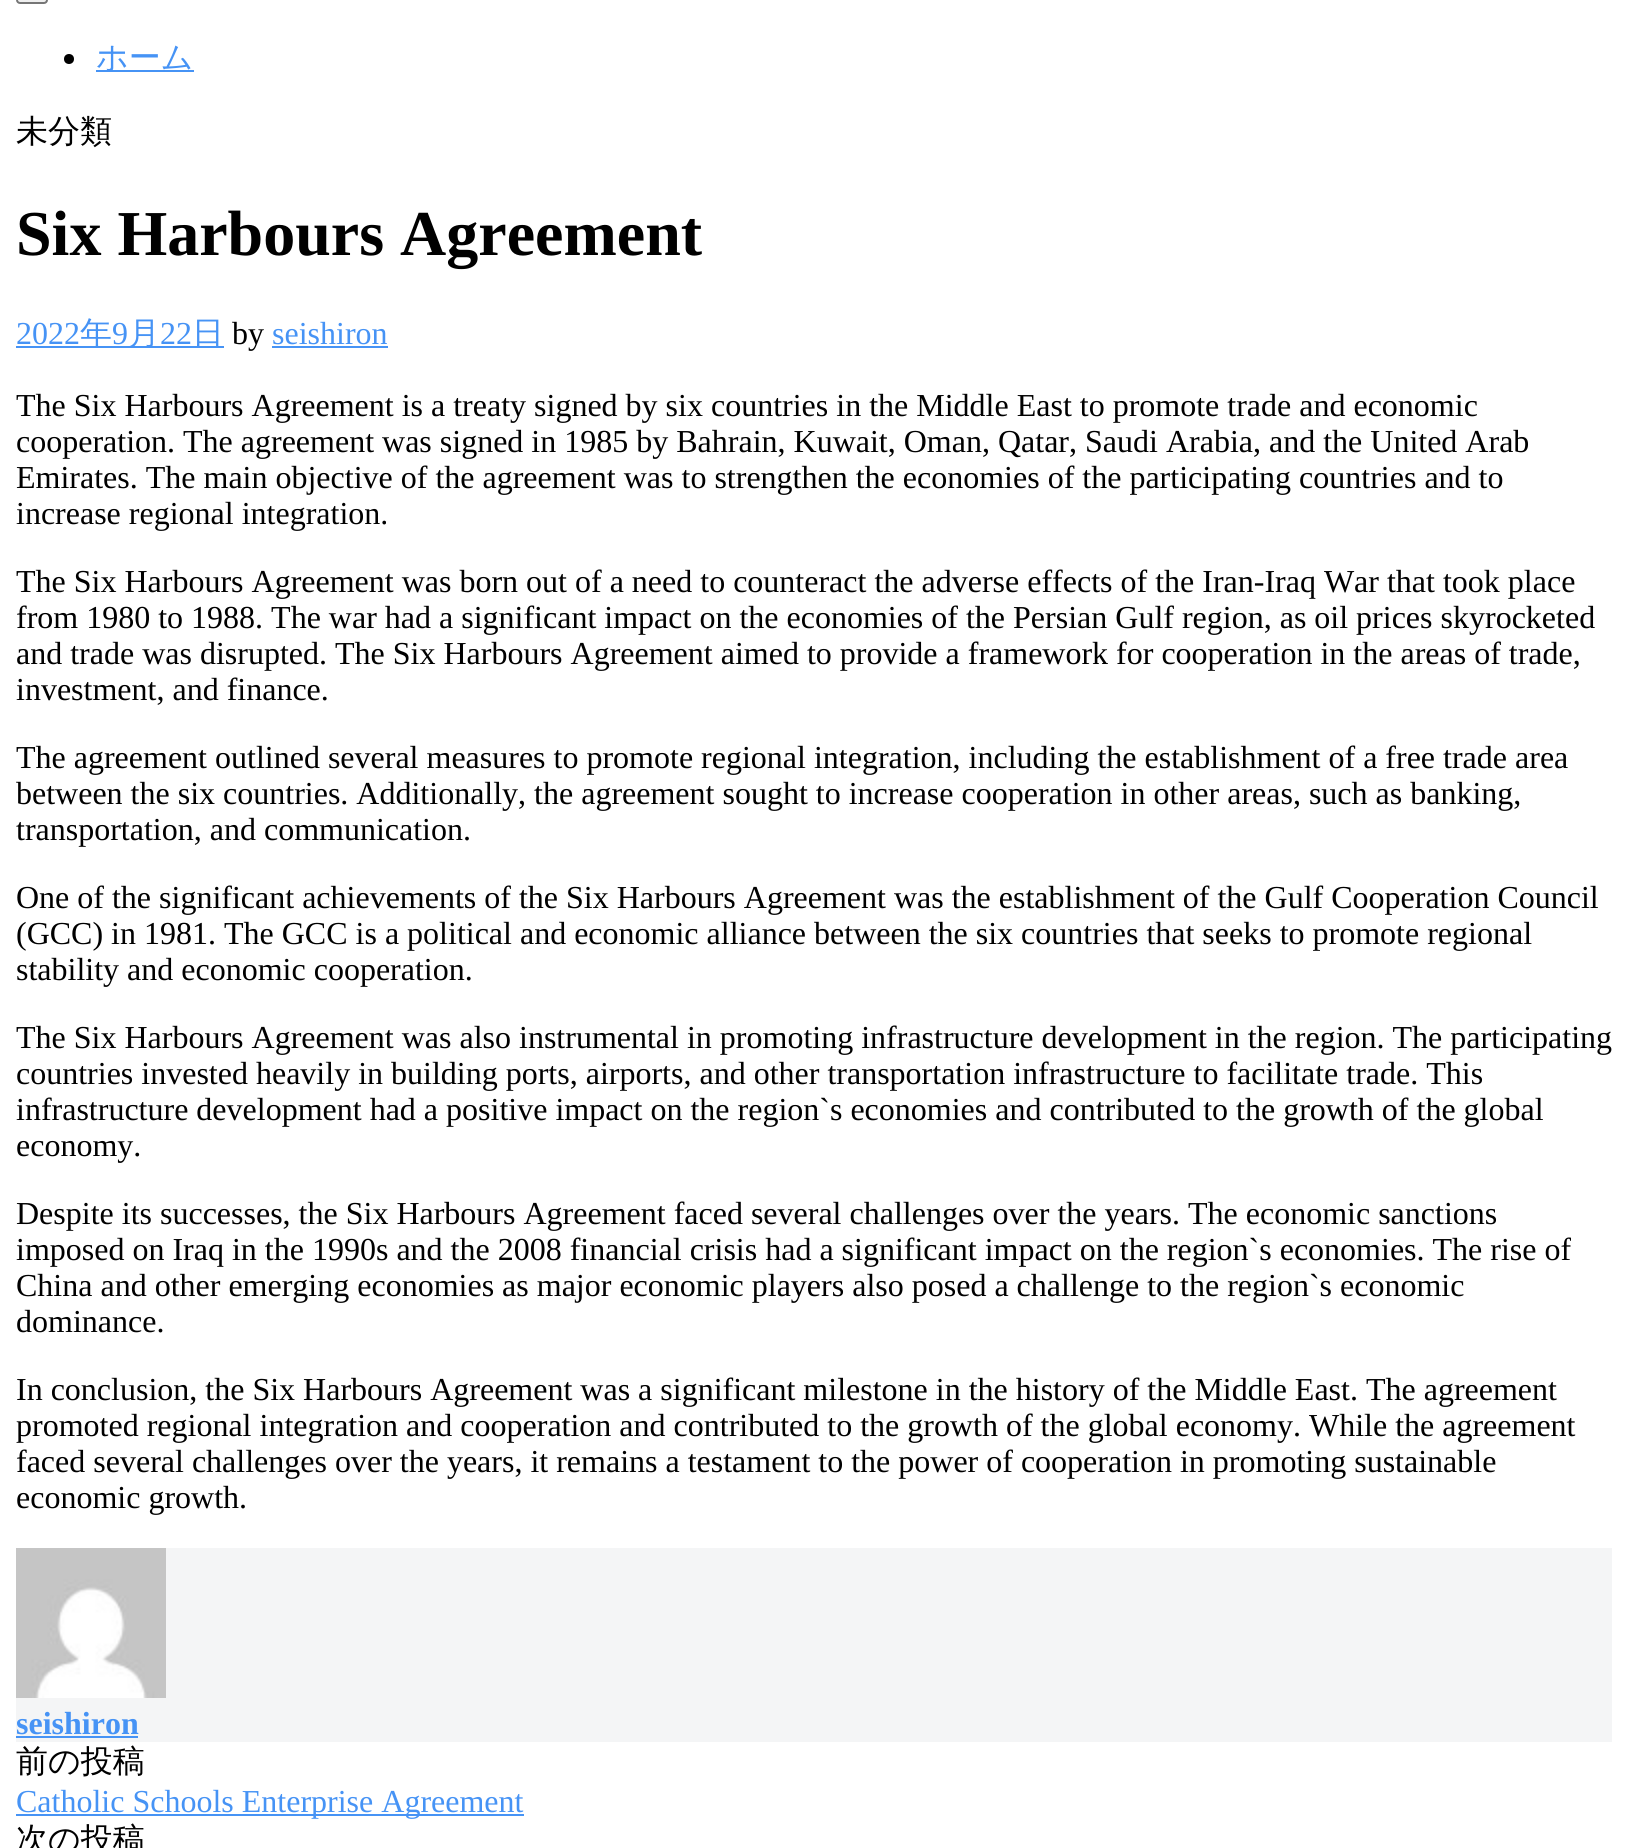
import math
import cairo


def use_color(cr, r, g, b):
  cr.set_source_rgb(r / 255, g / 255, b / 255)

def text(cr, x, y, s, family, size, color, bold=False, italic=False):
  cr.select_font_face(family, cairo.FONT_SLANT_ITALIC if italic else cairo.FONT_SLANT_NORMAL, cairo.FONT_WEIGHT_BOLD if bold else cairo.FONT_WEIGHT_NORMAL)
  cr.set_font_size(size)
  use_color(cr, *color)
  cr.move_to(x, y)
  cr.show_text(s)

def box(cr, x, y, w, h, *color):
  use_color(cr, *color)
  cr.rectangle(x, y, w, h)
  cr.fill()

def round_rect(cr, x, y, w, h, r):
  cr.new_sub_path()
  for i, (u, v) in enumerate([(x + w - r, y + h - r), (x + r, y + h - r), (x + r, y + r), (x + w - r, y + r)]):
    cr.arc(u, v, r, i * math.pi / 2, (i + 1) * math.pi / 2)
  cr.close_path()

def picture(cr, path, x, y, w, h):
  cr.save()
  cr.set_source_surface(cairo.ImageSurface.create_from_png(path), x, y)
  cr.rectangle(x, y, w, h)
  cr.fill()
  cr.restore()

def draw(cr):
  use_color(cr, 255, 255, 255)
  cr.paint()
  use_color(cr, 239, 239, 239)
  round_rect(cr, 17, -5, 30, 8, 3)
  cr.fill_preserve()
  use_color(cr, 118, 118, 118)
  cr.stroke()
  use_color(cr, 0, 0, 0)
  cr.arc(69, 59, 5, 0, 2 * math.pi)
  cr.fill()
  box(cr, 96, 70, 98, 2, 70, 147, 245)
  box(cr, 16, 346, 208, 2, 70, 147, 245)
  box(cr, 272, 346, 116, 2, 70, 147, 245)
  box(cr, 16, 1548, 1596, 194, 244, 245, 246)
  picture(cr, "img_01.png", 16, 1548, 150, 150)
  box(cr, 16, 1736, 122, 2, 70, 147, 245)
  box(cr, 16, 1814, 508, 2, 70, 147, 245)
  text(cr, 96, 68, "ホーム", "WenQuanYi Zen Hei Medium", 32, (70, 147, 245))
  text(cr, 16, 142, "未分類", "WenQuanYi Zen Hei Medium", 32, (0, 0, 0))
  text(cr, 16, 255, "Six Harbours Agreement", "Liberation Serif", 64, (0, 0, 0), bold=True)
  text(cr, 16, 344, "2022", "Liberation Serif", 32, (70, 147, 245))
  text(cr, 80, 344, "年", "WenQuanYi Zen Hei Medium", 32, (70, 147, 245))
  text(cr, 112, 344, "9", "Liberation Serif", 32, (70, 147, 245))
  text(cr, 128, 344, "月", "WenQuanYi Zen Hei Medium", 32, (70, 147, 245))
  text(cr, 160, 344, "22", "Liberation Serif", 32, (70, 147, 245))
  text(cr, 192, 344, "日", "WenQuanYi Zen Hei Medium", 32, (70, 147, 245))
  text(cr, 232, 344, "by", "Liberation Serif", 32, (0, 0, 0))
  text(cr, 272, 344, "seishiron", "Liberation Serif", 32, (70, 147, 245))
  text(cr, 16, 416, "The Six Harbours Agreement is a treaty signed by six countries in the Middle East to promote trade and economic", "Liberation Serif", 32, (0, 0, 0))
  text(cr, 16, 452, "cooperation. The agreement was signed in 1985 by Bahrain, Kuwait, Oman, Qatar, Saudi Arabia, and the United Arab", "Liberation Serif", 32, (0, 0, 0))
  text(cr, 16, 488, "Emirates. The main objective of the agreement was to strengthen the economies of the participating countries and to", "Liberation Serif", 32, (0, 0, 0))
  text(cr, 16, 524, "increase regional integration.", "Liberation Serif", 32, (0, 0, 0))
  text(cr, 16, 592, "The Six Harbours Agreement was born out of a need to counteract the adverse effects of the Iran-Iraq War that took place", "Liberation Serif", 32, (0, 0, 0))
  text(cr, 16, 628, "from 1980 to 1988. The war had a significant impact on the economies of the Persian Gulf region, as oil prices skyrocketed", "Liberation Serif", 32, (0, 0, 0))
  text(cr, 16, 664, "and trade was disrupted. The Six Harbours Agreement aimed to provide a framework for cooperation in the areas of trade,", "Liberation Serif", 32, (0, 0, 0))
  text(cr, 16, 700, "investment, and finance.", "Liberation Serif", 32, (0, 0, 0))
  text(cr, 16, 768, "The agreement outlined several measures to promote regional integration, including the establishment of a free trade area", "Liberation Serif", 32, (0, 0, 0))
  text(cr, 16, 804, "between the six countries. Additionally, the agreement sought to increase cooperation in other areas, such as banking,", "Liberation Serif", 32, (0, 0, 0))
  text(cr, 16, 840, "transportation, and communication.", "Liberation Serif", 32, (0, 0, 0))
  text(cr, 16, 908, "One of the significant achievements of the Six Harbours Agreement was the establishment of the Gulf Cooperation Council", "Liberation Serif", 32, (0, 0, 0))
  text(cr, 16, 944, "(GCC) in 1981. The GCC is a political and economic alliance between the six countries that seeks to promote regional", "Liberation Serif", 32, (0, 0, 0))
  text(cr, 16, 980, "stability and economic cooperation.", "Liberation Serif", 32, (0, 0, 0))
  text(cr, 16, 1048, "The Six Harbours Agreement was also instrumental in promoting infrastructure development in the region. The participating", "Liberation Serif", 32, (0, 0, 0))
  text(cr, 16, 1084, "countries invested heavily in building ports, airports, and other transportation infrastructure to facilitate trade. This", "Liberation Serif", 32, (0, 0, 0))
  text(cr, 16, 1120, "infrastructure development had a positive impact on the region`s economies and contributed to the growth of the global", "Liberation Serif", 32, (0, 0, 0))
  text(cr, 16, 1156, "economy.", "Liberation Serif", 32, (0, 0, 0))
  text(cr, 16, 1224, "Despite its successes, the Six Harbours Agreement faced several challenges over the years. The economic sanctions", "Liberation Serif", 32, (0, 0, 0))
  text(cr, 16, 1260, "imposed on Iraq in the 1990s and the 2008 financial crisis had a significant impact on the region`s economies. The rise of", "Liberation Serif", 32, (0, 0, 0))
  text(cr, 16, 1296, "China and other emerging economies as major economic players also posed a challenge to the region`s economic", "Liberation Serif", 32, (0, 0, 0))
  text(cr, 16, 1332, "dominance.", "Liberation Serif", 32, (0, 0, 0))
  text(cr, 16, 1400, "In conclusion, the Six Harbours Agreement was a significant milestone in the history of the Middle East. The agreement", "Liberation Serif", 32, (0, 0, 0))
  text(cr, 16, 1436, "promoted regional integration and cooperation and contributed to the growth of the global economy. While the agreement", "Liberation Serif", 32, (0, 0, 0))
  text(cr, 16, 1472, "faced several challenges over the years, it remains a testament to the power of cooperation in promoting sustainable", "Liberation Serif", 32, (0, 0, 0))
  text(cr, 16, 1508, "economic growth.", "Liberation Serif", 32, (0, 0, 0))
  text(cr, 16, 1734, "seishiron", "Liberation Serif", 32, (70, 147, 245), bold=True)
  text(cr, 16, 1772, "前の投稿", "WenQuanYi Zen Hei Medium", 32, (0, 0, 0))
  text(cr, 16, 1812, "Catholic Schools Enterprise Agreement", "Liberation Serif", 32, (70, 147, 245))
  text(cr, 16, 1850, "次の投稿", "WenQuanYi Zen Hei Medium", 32, (0, 0, 0))


surface = cairo.ImageSurface(cairo.FORMAT_RGB24, 1628, 1848)
cr = cairo.Context(surface)
options = cairo.FontOptions()
options.set_hint_metrics(cairo.HINT_METRICS_OFF)
options.set_hint_style(cairo.HINT_STYLE_NONE)
cr.set_font_options(options)
cr.set_miter_limit(4)
draw(cr)
surface.write_to_png("out.png")
